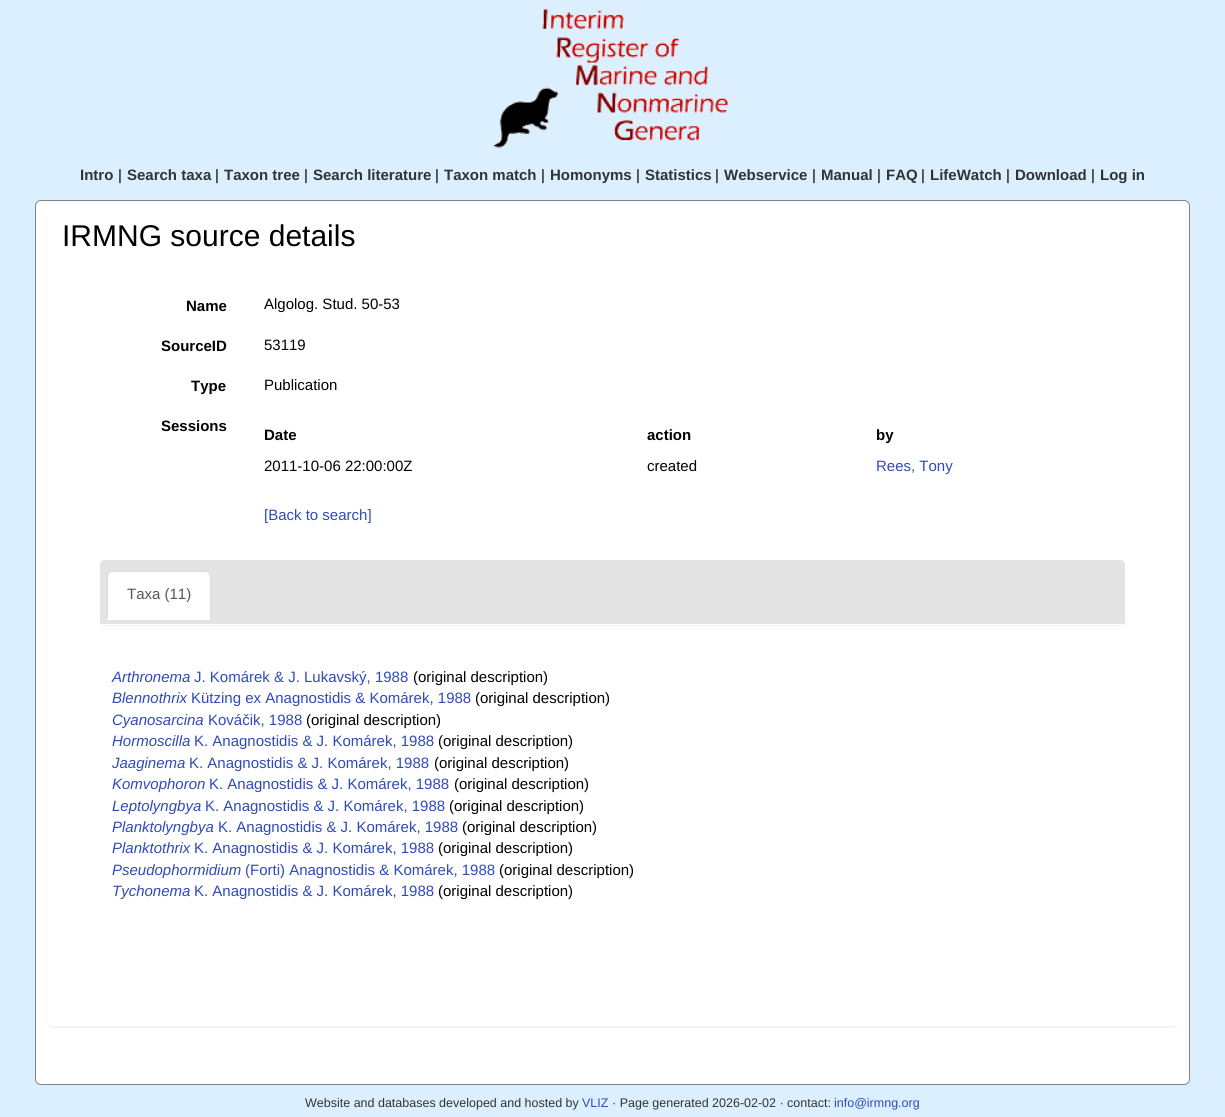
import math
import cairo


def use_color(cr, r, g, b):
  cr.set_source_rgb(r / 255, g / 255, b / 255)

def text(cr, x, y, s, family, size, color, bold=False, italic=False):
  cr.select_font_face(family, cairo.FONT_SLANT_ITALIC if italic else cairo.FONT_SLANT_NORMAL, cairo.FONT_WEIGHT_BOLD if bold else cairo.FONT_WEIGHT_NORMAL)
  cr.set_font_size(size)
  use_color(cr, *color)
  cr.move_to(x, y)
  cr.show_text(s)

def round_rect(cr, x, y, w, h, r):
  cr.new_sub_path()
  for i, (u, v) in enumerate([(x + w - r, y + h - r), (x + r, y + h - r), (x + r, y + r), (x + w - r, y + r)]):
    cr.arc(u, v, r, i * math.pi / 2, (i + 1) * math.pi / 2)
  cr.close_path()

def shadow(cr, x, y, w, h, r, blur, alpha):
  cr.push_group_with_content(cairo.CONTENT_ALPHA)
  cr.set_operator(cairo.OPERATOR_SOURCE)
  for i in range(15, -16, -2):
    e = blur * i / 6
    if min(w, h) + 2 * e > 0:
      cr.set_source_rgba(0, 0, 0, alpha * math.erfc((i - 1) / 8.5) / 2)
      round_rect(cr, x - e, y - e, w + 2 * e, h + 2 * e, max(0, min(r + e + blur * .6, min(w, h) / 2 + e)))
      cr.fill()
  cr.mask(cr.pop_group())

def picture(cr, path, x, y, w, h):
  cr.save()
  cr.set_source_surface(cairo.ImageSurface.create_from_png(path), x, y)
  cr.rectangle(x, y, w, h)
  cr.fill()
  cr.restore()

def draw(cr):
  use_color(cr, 219, 239, 255)
  cr.paint()
  picture(cr, "img_01.png", 492, 8, 237, 140)
  use_color(cr, 255, 255, 255)
  round_rect(cr, 35.5, 200.5, 1154, 884, 5.5)
  cr.fill_preserve()
  use_color(cr, 130, 130, 130)
  cr.set_line_width(1)
  cr.stroke()
  cr.save()
  cr.set_fill_rule(cairo.FILL_RULE_EVEN_ODD)
  cr.new_path()
  cr.move_to(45, 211)
  cr.line_to(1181, 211)
  cr.line_to(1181, 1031)
  cr.line_to(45, 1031)
  cr.close_path()
  cr.move_to(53, 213)
  cr.line_to(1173, 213)
  cr.curve_to(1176, 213, 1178, 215, 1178, 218)
  cr.line_to(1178, 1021)
  cr.curve_to(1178, 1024, 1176, 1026, 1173, 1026)
  cr.line_to(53, 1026)
  cr.curve_to(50, 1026, 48, 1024, 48, 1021)
  cr.line_to(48, 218)
  cr.curve_to(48, 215, 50, 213, 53, 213)
  cr.close_path()
  cr.clip()
  use_color(cr, 0, 0, 0)
  shadow(cr, 48, 214, 1130, 814, 5, 0.5, 0.05)
  cr.restore()
  cr.save()
  cr.set_fill_rule(cairo.FILL_RULE_EVEN_ODD)
  cr.new_path()
  cr.move_to(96, 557)
  cr.line_to(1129, 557)
  cr.line_to(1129, 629)
  cr.line_to(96, 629)
  cr.close_path()
  cr.move_to(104, 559)
  cr.line_to(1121, 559)
  cr.curve_to(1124, 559, 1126, 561, 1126, 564)
  cr.line_to(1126, 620)
  cr.curve_to(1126, 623, 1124, 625, 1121, 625)
  cr.line_to(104, 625)
  cr.curve_to(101, 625, 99, 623, 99, 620)
  cr.line_to(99, 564)
  cr.curve_to(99, 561, 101, 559, 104, 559)
  cr.close_path()
  cr.clip()
  use_color(cr, 0, 0, 0)
  shadow(cr, 99, 560, 1027, 66, 5, 0.5, 0.05)
  cr.restore()
  cr.set_source_rgba(0.471, 0.471, 0.471, 0.2)
  cr.new_path()
  cr.move_to(104, 560)
  cr.line_to(1121, 560)
  cr.curve_to(1123, 560, 1125, 562, 1125, 564)
  cr.line_to(1125, 624)
  cr.line_to(100, 624)
  cr.line_to(100, 564)
  cr.curve_to(100, 562, 102, 560, 104, 560)
  cr.close_path()
  cr.fill()
  use_color(cr, 255, 255, 255)
  cr.new_path()
  cr.move_to(111, 571)
  cr.line_to(206, 571)
  cr.curve_to(209, 571, 211, 573, 211, 576)
  cr.line_to(211, 620)
  cr.line_to(106, 620)
  cr.line_to(106, 576)
  cr.curve_to(106, 573, 108, 571, 111, 571)
  cr.close_path()
  cr.fill()
  use_color(cr, 221, 221, 221)
  cr.new_path()
  cr.move_to(111, 572)
  cr.curve_to(110, 572, 109, 573, 109, 574)
  cr.line_to(107, 572)
  cr.line_to(109, 571)
  cr.line_to(191, 571)
  cr.curve_to(198, 571, 206, 568, 210, 573)
  cr.line_to(209, 574)
  cr.curve_to(208, 573, 207, 572, 206, 572)
  cr.close_path()
  cr.fill()
  cr.new_path()
  cr.move_to(210, 573)
  cr.curve_to(211, 573, 211, 575, 211, 576)
  cr.line_to(211, 620)
  cr.line_to(210, 619)
  cr.line_to(210, 576)
  cr.line_to(209, 574)
  cr.close_path()
  cr.fill()
  cr.new_path()
  cr.move_to(106, 620)
  cr.line_to(106, 574)
  cr.line_to(107, 572)
  cr.line_to(109, 574)
  cr.line_to(108, 576)
  cr.line_to(108, 618)
  cr.close_path()
  cr.fill()
  text(cr, 80, 180, "Intro", "Liberation Sans", 15, (51, 51, 51), bold=True)
  text(cr, 118, 180, "|", "Liberation Sans", 15, (0, 0, 0))
  text(cr, 127, 180, "Search taxa", "Liberation Sans", 15, (51, 51, 51), bold=True)
  text(cr, 215, 180, "|", "Liberation Sans", 15, (0, 0, 0))
  text(cr, 224, 180, "Taxon tree", "Liberation Sans", 15, (51, 51, 51), bold=True)
  text(cr, 304, 180, "|", "Liberation Sans", 15, (0, 0, 0))
  text(cr, 313, 180, "Search literature", "Liberation Sans", 15, (51, 51, 51), bold=True)
  text(cr, 435, 180, "|", "Liberation Sans", 15, (0, 0, 0))
  text(cr, 444, 180, "Taxon match", "Liberation Sans", 15, (51, 51, 51), bold=True)
  text(cr, 541, 180, "|", "Liberation Sans", 15, (0, 0, 0))
  text(cr, 550, 180, "Homonyms", "Liberation Sans", 15, (51, 51, 51), bold=True)
  text(cr, 636, 180, "|", "Liberation Sans", 15, (0, 0, 0))
  text(cr, 645, 180, "Statistics", "Liberation Sans", 15, (51, 51, 51), bold=True)
  text(cr, 715, 180, "|", "Liberation Sans", 15, (0, 0, 0))
  text(cr, 724, 180, "Webservice", "Liberation Sans", 15, (51, 51, 51), bold=True)
  text(cr, 812, 180, "|", "Liberation Sans", 15, (0, 0, 0))
  text(cr, 821, 180, "Manual", "Liberation Sans", 15, (51, 51, 51), bold=True)
  text(cr, 877, 180, "|", "Liberation Sans", 15, (0, 0, 0))
  text(cr, 886, 180, "FAQ", "Liberation Sans", 15, (51, 51, 51), bold=True)
  text(cr, 921, 180, "|", "Liberation Sans", 15, (0, 0, 0))
  text(cr, 930, 180, "LifeWatch", "Liberation Sans", 15, (51, 51, 51), bold=True)
  text(cr, 1006, 180, "|", "Liberation Sans", 15, (0, 0, 0))
  text(cr, 1015, 180, "Download", "Liberation Sans", 15, (51, 51, 51), bold=True)
  text(cr, 1091, 180, "|", "Liberation Sans", 15, (0, 0, 0))
  text(cr, 1100, 180, "Log in", "Liberation Sans", 15, (51, 51, 51), bold=True)
  text(cr, 62, 246, "IRMNG source details", "Liberation Sans", 30, (0, 0, 0))
  text(cr, 186, 311, "Name", "Liberation Sans", 15, (0, 0, 0), bold=True)
  text(cr, 264, 309, "Algolog. Stud. 50-53", "Liberation Sans", 15, (0, 0, 0))
  text(cr, 161, 351, "SourceID", "Liberation Sans", 15, (0, 0, 0), bold=True)
  text(cr, 264, 350, "53119", "Liberation Sans", 15, (0, 0, 0))
  text(cr, 191, 391, "Type", "Liberation Sans", 15, (0, 0, 0), bold=True)
  text(cr, 264, 390, "Publication", "Liberation Sans", 15, (0, 0, 0))
  text(cr, 161, 431, "Sessions", "Liberation Sans", 15, (0, 0, 0), bold=True)
  text(cr, 264, 440, "Date", "Liberation Sans", 15, (0, 0, 0), bold=True)
  text(cr, 647, 440, "action", "Liberation Sans", 15, (0, 0, 0), bold=True)
  text(cr, 876, 440, "by", "Liberation Sans", 15, (0, 0, 0), bold=True)
  text(cr, 264, 471, "2011-10-06 22:00:00Z", "Liberation Sans", 15, (0, 0, 0))
  text(cr, 647, 471, "created", "Liberation Sans", 15, (0, 0, 0))
  text(cr, 876, 471, "Rees, Tony", "Liberation Sans", 15, (47, 74, 186))
  text(cr, 264, 520, "[Back to search]", "Liberation Sans", 15, (47, 74, 186))
  text(cr, 127, 599, "Taxa (11)", "Liberation Sans", 15, (85, 85, 85))
  text(cr, 112, 682, "Arthronema", "Liberation Sans", 15, (47, 74, 186), italic=True)
  text(cr, 194, 682, "J. Komárek & J. Lukavský, 1988", "Liberation Sans", 15, (47, 74, 186))
  text(cr, 413, 682, "(original description)", "Liberation Sans", 15, (0, 0, 0))
  text(cr, 112, 703, "Blennothrix", "Liberation Sans", 15, (47, 74, 186), italic=True)
  text(cr, 191, 703, "Kützing ex Anagnostidis & Komárek, 1988", "Liberation Sans", 15, (47, 74, 186))
  text(cr, 475, 703, "(original description)", "Liberation Sans", 15, (0, 0, 0))
  text(cr, 112, 725, "Cyanosarcina", "Liberation Sans", 15, (47, 74, 186), italic=True)
  text(cr, 208, 725, "Kováčik, 1988", "Liberation Sans", 15, (47, 74, 186))
  text(cr, 306, 725, "(original description)", "Liberation Sans", 15, (0, 0, 0))
  text(cr, 112, 746, "Hormoscilla", "Liberation Sans", 15, (47, 74, 186), italic=True)
  text(cr, 194, 746, "K. Anagnostidis & J. Komárek, 1988", "Liberation Sans", 15, (47, 74, 186))
  text(cr, 438, 746, "(original description)", "Liberation Sans", 15, (0, 0, 0))
  text(cr, 112, 768, "Jaaginema", "Liberation Sans", 15, (47, 74, 186), italic=True)
  text(cr, 189, 768, "K. Anagnostidis & J. Komárek, 1988", "Liberation Sans", 15, (47, 74, 186))
  text(cr, 434, 768, "(original description)", "Liberation Sans", 15, (0, 0, 0))
  text(cr, 112, 789, "Komvophoron", "Liberation Sans", 15, (47, 74, 186), italic=True)
  text(cr, 209, 789, "K. Anagnostidis & J. Komárek, 1988", "Liberation Sans", 15, (47, 74, 186))
  text(cr, 454, 789, "(original description)", "Liberation Sans", 15, (0, 0, 0))
  text(cr, 112, 811, "Leptolyngbya", "Liberation Sans", 15, (47, 74, 186), italic=True)
  text(cr, 205, 811, "K. Anagnostidis & J. Komárek, 1988", "Liberation Sans", 15, (47, 74, 186))
  text(cr, 449, 811, "(original description)", "Liberation Sans", 15, (0, 0, 0))
  text(cr, 112, 832, "Planktolyngbya", "Liberation Sans", 15, (47, 74, 186), italic=True)
  text(cr, 218, 832, "K. Anagnostidis & J. Komárek, 1988", "Liberation Sans", 15, (47, 74, 186))
  text(cr, 462, 832, "(original description)", "Liberation Sans", 15, (0, 0, 0))
  text(cr, 112, 853, "Planktothrix", "Liberation Sans", 15, (47, 74, 186), italic=True)
  text(cr, 194, 853, "K. Anagnostidis & J. Komárek, 1988", "Liberation Sans", 15, (47, 74, 186))
  text(cr, 438, 853, "(original description)", "Liberation Sans", 15, (0, 0, 0))
  text(cr, 112, 875, "Pseudophormidium", "Liberation Sans", 15, (47, 74, 186), italic=True)
  text(cr, 245, 875, "(Forti) Anagnostidis & Komárek, 1988", "Liberation Sans", 15, (47, 74, 186))
  text(cr, 499, 875, "(original description)", "Liberation Sans", 15, (0, 0, 0))
  text(cr, 112, 896, "Tychonema", "Liberation Sans", 15, (47, 74, 186), italic=True)
  text(cr, 194, 896, "K. Anagnostidis & J. Komárek, 1988", "Liberation Sans", 15, (47, 74, 186))
  text(cr, 438, 896, "(original description)", "Liberation Sans", 15, (0, 0, 0))
  text(cr, 305, 1107, "Website and databases developed and hosted by", "Liberation Sans", 12.5, (51, 51, 51))
  text(cr, 582, 1107, "VLIZ", "Liberation Sans", 12.5, (47, 74, 186))
  text(cr, 612, 1107, "· Page generated 2026-02-02 · contact:", "Liberation Sans", 12.5, (51, 51, 51))
  text(cr, 834, 1107, "info@irmng.org", "Liberation Sans", 12.5, (47, 74, 186))


surface = cairo.ImageSurface(cairo.FORMAT_RGB24, 1225, 1117)
cr = cairo.Context(surface)
options = cairo.FontOptions()
options.set_hint_metrics(cairo.HINT_METRICS_OFF)
options.set_hint_style(cairo.HINT_STYLE_NONE)
cr.set_font_options(options)
cr.set_miter_limit(4)
draw(cr)
surface.write_to_png("out.png")
